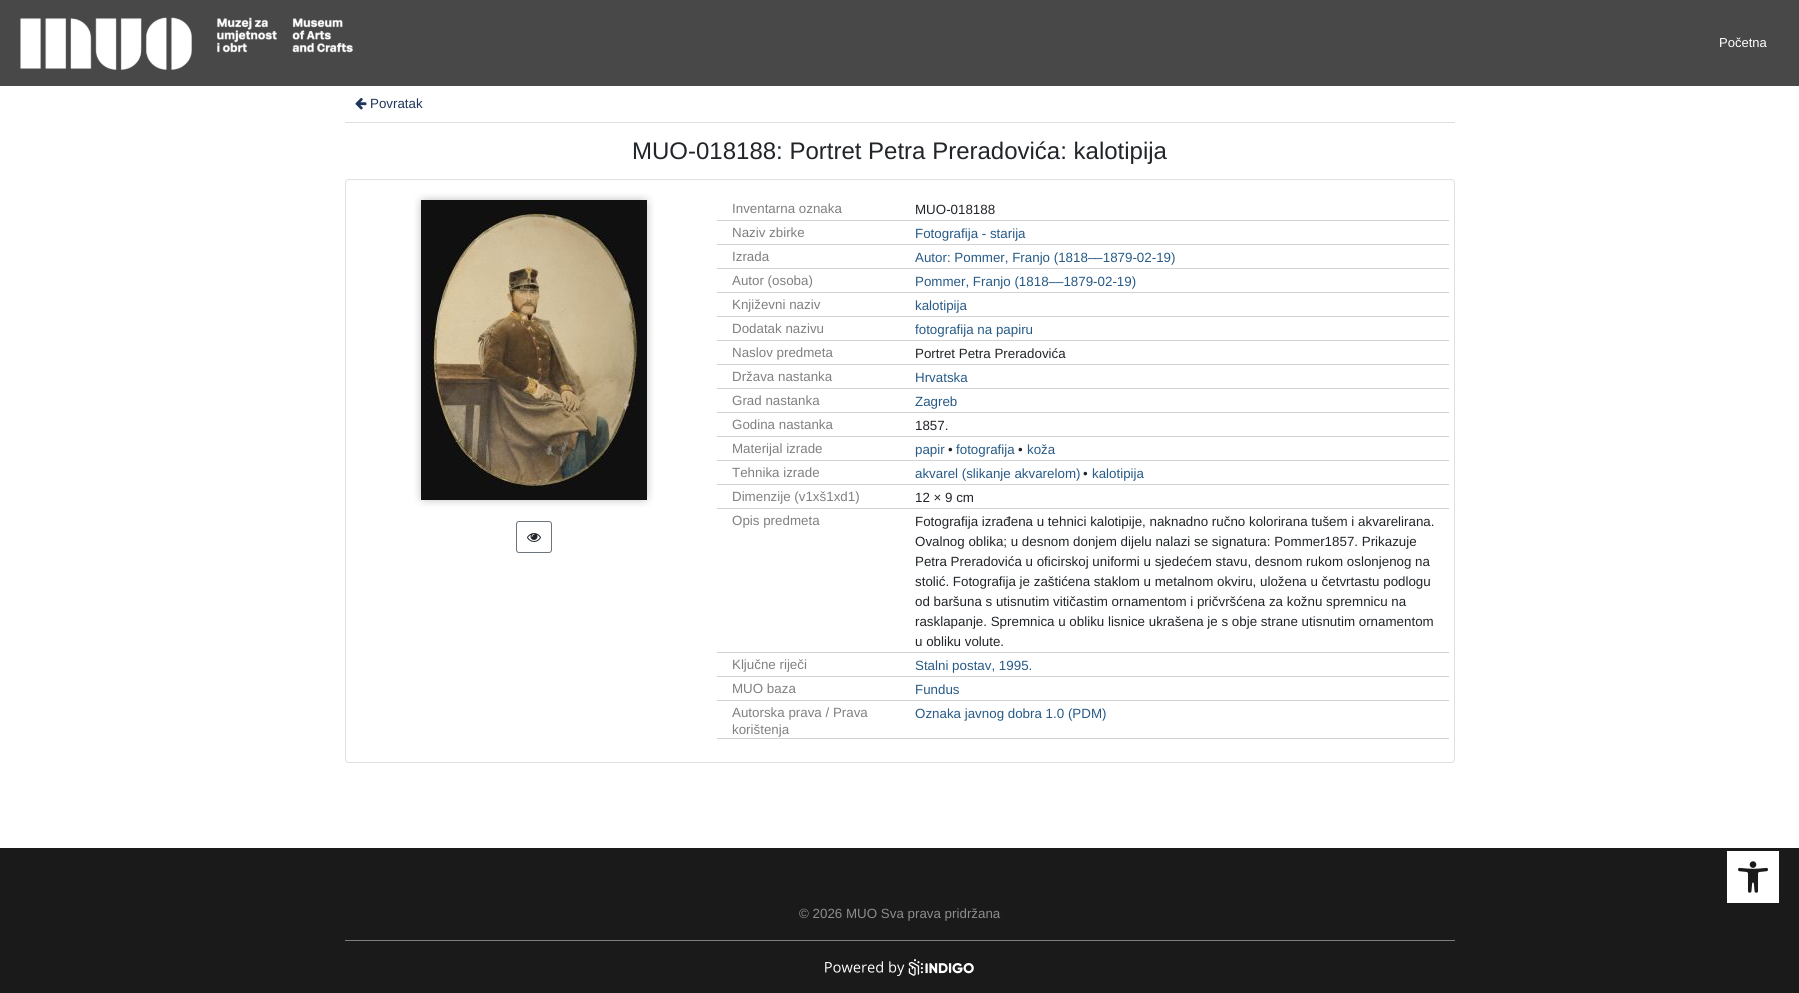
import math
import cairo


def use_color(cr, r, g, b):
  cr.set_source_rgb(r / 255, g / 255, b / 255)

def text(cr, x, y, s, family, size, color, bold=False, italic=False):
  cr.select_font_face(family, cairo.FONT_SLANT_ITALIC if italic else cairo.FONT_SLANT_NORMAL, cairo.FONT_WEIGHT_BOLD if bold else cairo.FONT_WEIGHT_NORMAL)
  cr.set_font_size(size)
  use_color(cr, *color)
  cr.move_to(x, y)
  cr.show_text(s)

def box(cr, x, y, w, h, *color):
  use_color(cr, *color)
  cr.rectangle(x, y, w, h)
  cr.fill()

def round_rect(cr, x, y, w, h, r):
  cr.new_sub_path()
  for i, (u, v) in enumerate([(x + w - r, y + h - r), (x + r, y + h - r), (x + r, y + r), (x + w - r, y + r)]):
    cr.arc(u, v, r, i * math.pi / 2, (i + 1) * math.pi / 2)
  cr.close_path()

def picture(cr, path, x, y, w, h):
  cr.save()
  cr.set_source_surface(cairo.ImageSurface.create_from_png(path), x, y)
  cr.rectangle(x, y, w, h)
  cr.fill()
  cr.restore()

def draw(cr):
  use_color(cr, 255, 255, 255)
  cr.paint()
  box(cr, 0, 0, 1799, 86, 72, 72, 72)
  picture(cr, "img_01.png", 20, 17, 333, 53)
  box(cr, 345, 122, 1110, 1, 223, 223, 223)
  picture(cr, "img_02.png", 355, 97, 12, 13)
  round_rect(cr, 345.5, 179.5, 1109, 583, 3.5)
  cr.set_line_width(1)
  cr.stroke()
  picture(cr, "img_03.png", 414, 193, 240, 314)
  round_rect(cr, 516.5, 521.5, 35, 31, 2.5)
  use_color(cr, 108, 117, 125)
  cr.stroke()
  picture(cr, "img_04.png", 527, 533, 14, 9)
  box(cr, 717, 220, 732, 1, 211, 211, 211)
  box(cr, 717, 244, 732, 1, 211, 211, 211)
  box(cr, 717, 268, 732, 1, 211, 211, 211)
  box(cr, 717, 292, 732, 1, 211, 211, 211)
  box(cr, 717, 316, 732, 1, 211, 211, 211)
  box(cr, 717, 340, 732, 1, 211, 211, 211)
  box(cr, 717, 364, 732, 1, 211, 211, 211)
  box(cr, 717, 388, 732, 1, 211, 211, 211)
  box(cr, 717, 412, 732, 1, 211, 211, 211)
  box(cr, 717, 436, 732, 1, 211, 211, 211)
  box(cr, 717, 460, 732, 1, 211, 211, 211)
  box(cr, 717, 484, 732, 1, 211, 211, 211)
  box(cr, 717, 508, 732, 1, 211, 211, 211)
  box(cr, 717, 652, 732, 1, 211, 211, 211)
  box(cr, 717, 676, 732, 1, 211, 211, 211)
  box(cr, 717, 700, 732, 1, 211, 211, 211)
  box(cr, 717, 738, 732, 1, 211, 211, 211)
  box(cr, 0, 848, 1799, 145, 26, 26, 26)
  box(cr, 1727, 851, 52, 52, 255, 255, 255)
  picture(cr, "img_05.png", 1738, 861, 30, 32)
  box(cr, 345, 940, 1110, 1, 125, 126, 127)
  picture(cr, "img_06.png", 825, 959, 149, 17)
  text(cr, 1719, 47, "Početna", "Liberation Sans", 13, (255, 255, 255))
  text(cr, 370, 108, "Povratak", "Liberation Sans", 13.35, (31, 54, 92))
  text(cr, 632, 159, "MUO-018188: Portret Petra Preradovića: kalotipija", "Liberation Sans", 24, (33, 37, 41))
  text(cr, 732, 213, "Inventarna oznaka", "Liberation Sans", 13.35, (128, 128, 128))
  text(cr, 915, 214, "MUO-018188", "Liberation Sans", 13.35, (33, 37, 41))
  text(cr, 732, 237, "Naziv zbirke", "Liberation Sans", 13.35, (128, 128, 128))
  text(cr, 915, 238, "Fotografija - starija", "Liberation Sans", 13.35, (39, 90, 135))
  text(cr, 732, 261, "Izrada", "Liberation Sans", 13.35, (128, 128, 128))
  text(cr, 915, 262, "Autor: Pommer, Franjo (1818––1879-02-19)", "Liberation Sans", 13.35, (39, 90, 135))
  text(cr, 732, 285, "Autor (osoba)", "Liberation Sans", 13.35, (128, 128, 128))
  text(cr, 915, 286, "Pommer, Franjo (1818––1879-02-19)", "Liberation Sans", 13.35, (39, 90, 135))
  text(cr, 732, 309, "Književni naziv", "Liberation Sans", 13.35, (128, 128, 128))
  text(cr, 915, 310, "kalotipija", "Liberation Sans", 13.35, (39, 90, 135))
  text(cr, 732, 333, "Dodatak nazivu", "Liberation Sans", 13.35, (128, 128, 128))
  text(cr, 915, 334, "fotografija na papiru", "Liberation Sans", 13.35, (39, 90, 135))
  text(cr, 732, 357, "Naslov predmeta", "Liberation Sans", 13.35, (128, 128, 128))
  text(cr, 915, 358, "Portret Petra Preradovića", "Liberation Sans", 13.35, (33, 37, 41))
  text(cr, 732, 381, "Država nastanka", "Liberation Sans", 13.35, (128, 128, 128))
  text(cr, 915, 382, "Hrvatska", "Liberation Sans", 13.35, (39, 90, 135))
  text(cr, 732, 405, "Grad nastanka", "Liberation Sans", 13.35, (128, 128, 128))
  text(cr, 915, 406, "Zagreb", "Liberation Sans", 13.35, (39, 90, 135))
  text(cr, 732, 429, "Godina nastanka", "Liberation Sans", 13.35, (128, 128, 128))
  text(cr, 915, 430, "1857.", "Liberation Sans", 13.35, (33, 37, 41))
  text(cr, 732, 453, "Materijal izrade", "Liberation Sans", 13.35, (128, 128, 128))
  text(cr, 915, 454, "papir", "Liberation Sans", 13.35, (39, 90, 135))
  text(cr, 948, 454, "•", "Liberation Sans", 13.35, (33, 37, 41))
  text(cr, 956, 454, "fotografija", "Liberation Sans", 13.35, (39, 90, 135))
  text(cr, 1018, 454, "•", "Liberation Sans", 13.35, (33, 37, 41))
  text(cr, 1027, 454, "koža", "Liberation Sans", 13.35, (39, 90, 135))
  text(cr, 732, 477, "Tehnika izrade", "Liberation Sans", 13.35, (128, 128, 128))
  text(cr, 915, 478, "akvarel (slikanje akvarelom)", "Liberation Sans", 13.35, (39, 90, 135))
  text(cr, 1083, 478, "•", "Liberation Sans", 13.35, (33, 37, 41))
  text(cr, 1092, 478, "kalotipija", "Liberation Sans", 13.35, (39, 90, 135))
  text(cr, 732, 501, "Dimenzije (v1xš1xd1)", "Liberation Sans", 13.35, (128, 128, 128))
  text(cr, 915, 502, "12 × 9 cm", "Liberation Sans", 13.35, (33, 37, 41))
  text(cr, 732, 525, "Opis predmeta", "Liberation Sans", 13.35, (128, 128, 128))
  text(cr, 915, 526, "Fotografija izrađena u tehnici kalotipije, naknadno ručno kolorirana tušem i akvarelirana.", "Liberation Sans", 13.35, (33, 37, 41))
  text(cr, 915, 546, "Ovalnog oblika; u desnom donjem dijelu nalazi se signatura: Pommer1857. Prikazuje", "Liberation Sans", 13.35, (33, 37, 41))
  text(cr, 915, 566, "Petra Preradovića u oficirskoj uniformi u sjedećem stavu, desnom rukom oslonjenog na", "Liberation Sans", 13.35, (33, 37, 41))
  text(cr, 915, 586, "stolić. Fotografija je zaštićena staklom u metalnom okviru, uložena u četvrtastu podlogu", "Liberation Sans", 13.35, (33, 37, 41))
  text(cr, 915, 606, "od baršuna s utisnutim vitičastim ornamentom i pričvršćena za kožnu spremnicu na", "Liberation Sans", 13.35, (33, 37, 41))
  text(cr, 915, 626, "rasklapanje. Spremnica u obliku lisnice ukrašena je s obje strane utisnutim ornamentom", "Liberation Sans", 13.35, (33, 37, 41))
  text(cr, 915, 646, "u obliku volute.", "Liberation Sans", 13.35, (33, 37, 41))
  text(cr, 732, 669, "Ključne riječi", "Liberation Sans", 13.35, (128, 128, 128))
  text(cr, 915, 670, "Stalni postav, 1995.", "Liberation Sans", 13.35, (39, 90, 135))
  text(cr, 732, 693, "MUO baza", "Liberation Sans", 13.35, (128, 128, 128))
  text(cr, 915, 694, "Fundus", "Liberation Sans", 13.35, (39, 90, 135))
  text(cr, 732, 717, "Autorska prava / Prava", "Liberation Sans", 13.35, (128, 128, 128))
  text(cr, 732, 734, "korištenja", "Liberation Sans", 13.35, (128, 128, 128))
  text(cr, 915, 718, "Oznaka javnog dobra 1.0 (PDM)", "Liberation Sans", 13.35, (39, 90, 135))
  text(cr, 799, 918, "© 2026 MUO Sva prava pridržana", "Liberation Sans", 13.35, (139, 140, 141))


surface = cairo.ImageSurface(cairo.FORMAT_RGB24, 1799, 993)
cr = cairo.Context(surface)
options = cairo.FontOptions()
options.set_hint_metrics(cairo.HINT_METRICS_OFF)
options.set_hint_style(cairo.HINT_STYLE_NONE)
cr.set_font_options(options)
cr.set_miter_limit(4)
draw(cr)
surface.write_to_png("out.png")
